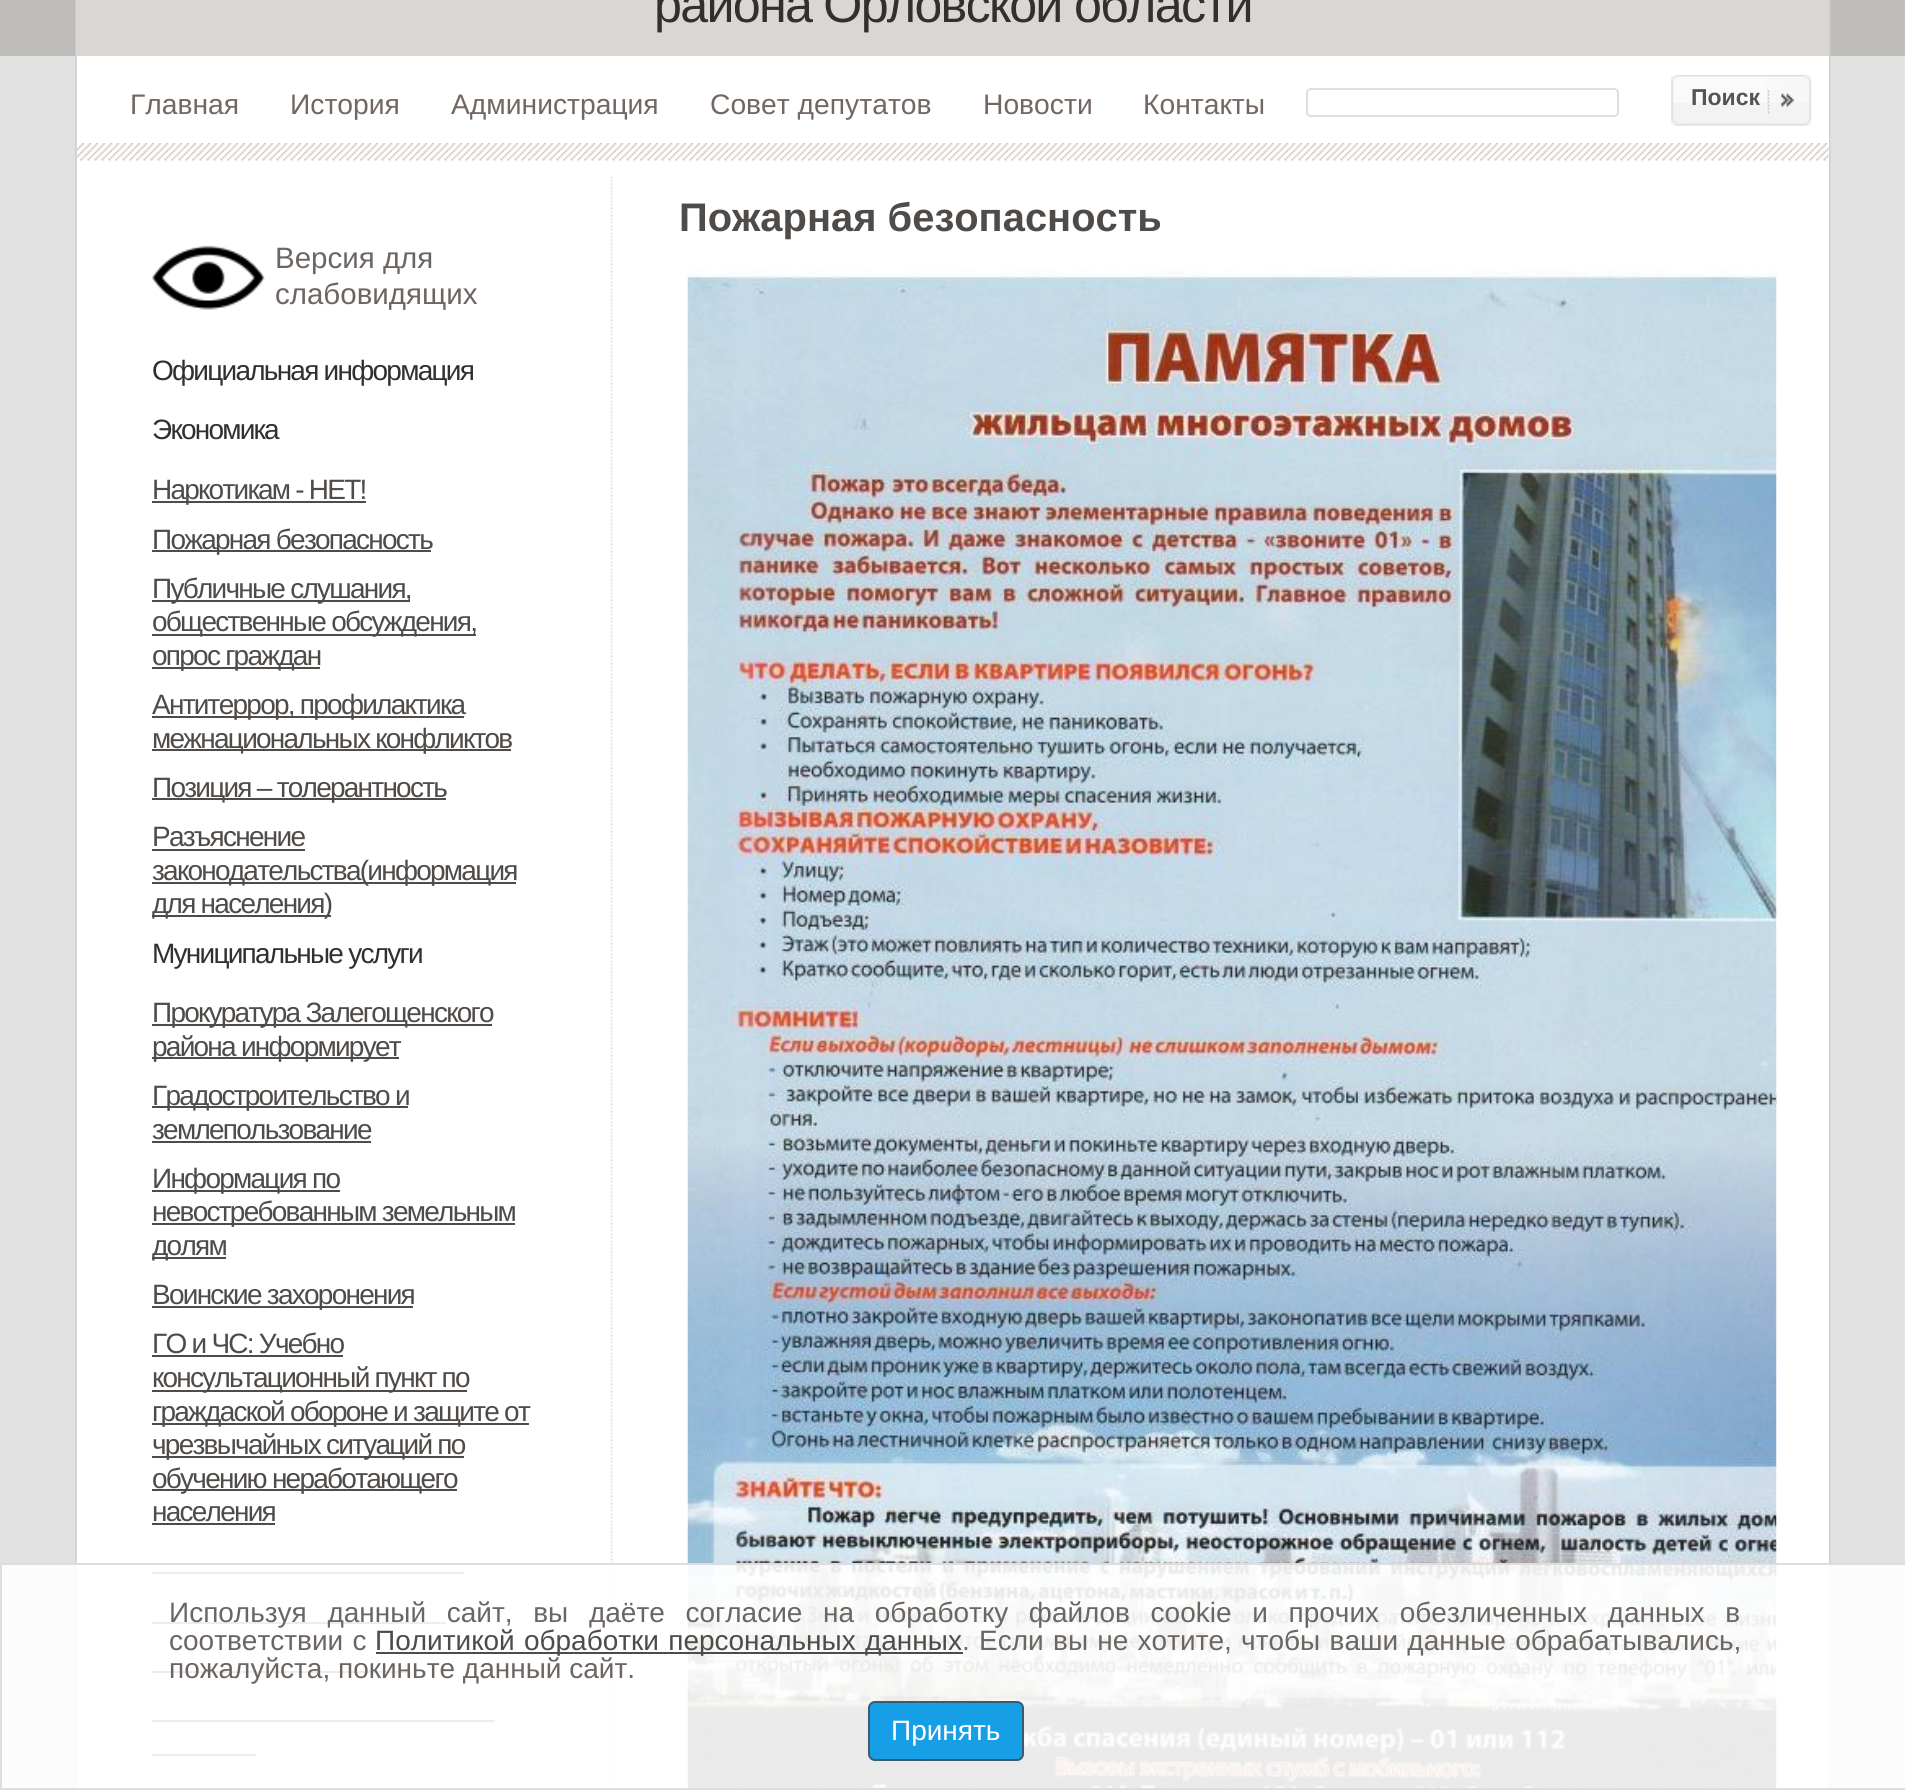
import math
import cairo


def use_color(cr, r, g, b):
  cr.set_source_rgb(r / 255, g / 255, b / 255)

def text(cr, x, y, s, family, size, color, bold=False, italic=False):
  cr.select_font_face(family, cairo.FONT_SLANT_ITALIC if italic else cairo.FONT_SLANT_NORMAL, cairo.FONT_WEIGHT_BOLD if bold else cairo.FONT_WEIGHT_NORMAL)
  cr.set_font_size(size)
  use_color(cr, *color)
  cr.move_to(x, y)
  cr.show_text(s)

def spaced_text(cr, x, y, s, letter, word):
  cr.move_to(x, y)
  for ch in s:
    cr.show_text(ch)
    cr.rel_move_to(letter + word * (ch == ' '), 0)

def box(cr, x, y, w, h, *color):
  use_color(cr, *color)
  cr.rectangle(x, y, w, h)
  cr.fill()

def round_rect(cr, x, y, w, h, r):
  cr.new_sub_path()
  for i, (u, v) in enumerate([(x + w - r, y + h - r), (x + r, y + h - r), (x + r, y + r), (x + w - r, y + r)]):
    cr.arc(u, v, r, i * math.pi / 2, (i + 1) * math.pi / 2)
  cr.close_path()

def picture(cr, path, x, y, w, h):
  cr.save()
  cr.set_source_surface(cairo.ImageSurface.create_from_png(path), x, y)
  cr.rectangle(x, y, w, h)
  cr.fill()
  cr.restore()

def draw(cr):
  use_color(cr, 226, 226, 226)
  cr.paint()
  box(cr, 0, 0, 1905, 56, 192, 190, 187)
  picture(cr, "img_01.png", 75, 0, 1756, 1788)
  box(cr, 77, 56, 1752, 1732, 255, 255, 255)
  box(cr, 77, 0, 1752, 56, 217, 214, 211)
  round_rect(cr, 1307, 89, 311, 27, 4)
  use_color(cr, 225, 221, 221)
  cr.stroke()
  picture(cr, "img_02.png", 1671, 75, 140, 51)
  picture(cr, "img_03.png", 1671, 75, 16, 51)
  picture(cr, "img_04.png", 1766, 75, 45, 51)
  picture(cr, "img_05.png", 77, 143, 1752, 18)
  picture(cr, "img_06.png", 610, 176, 3, 1612)
  picture(cr, "img_07.png", 687, 269, 1090, 1519)
  picture(cr, "img_08.png", 152, 245, 113, 65)
  box(cr, 152, 501, 214, 2, 79, 75, 72)
  box(cr, 152, 550, 279, 2, 79, 75, 72)
  box(cr, 152, 600, 258, 2, 79, 75, 72)
  box(cr, 152, 634, 324, 2, 79, 75, 72)
  box(cr, 152, 667, 168, 2, 79, 75, 72)
  box(cr, 152, 716, 312, 2, 79, 75, 72)
  box(cr, 152, 749, 359, 2, 79, 75, 72)
  box(cr, 152, 798, 294, 2, 79, 75, 72)
  box(cr, 152, 849, 153, 2, 79, 75, 72)
  box(cr, 152, 882, 364, 2, 79, 75, 72)
  box(cr, 152, 915, 179, 2, 79, 75, 72)
  box(cr, 152, 1024, 340, 2, 79, 75, 72)
  box(cr, 152, 1057, 247, 2, 79, 75, 72)
  box(cr, 152, 1106, 256, 2, 79, 75, 72)
  box(cr, 152, 1141, 219, 2, 79, 75, 72)
  box(cr, 152, 1190, 188, 2, 79, 75, 72)
  box(cr, 152, 1223, 363, 2, 79, 75, 72)
  box(cr, 152, 1257, 74, 2, 79, 75, 72)
  box(cr, 152, 1306, 261, 2, 79, 75, 72)
  box(cr, 152, 1355, 191, 2, 79, 75, 72)
  box(cr, 152, 1390, 315, 2, 79, 75, 72)
  box(cr, 152, 1423, 377, 2, 79, 75, 72)
  box(cr, 152, 1456, 312, 2, 79, 75, 72)
  box(cr, 152, 1489, 305, 2, 79, 75, 72)
  box(cr, 152, 1523, 123, 2, 79, 75, 72)
  box(cr, 152, 1572, 312, 2, 79, 75, 72)
  box(cr, 152, 1622, 294, 2, 79, 75, 72)
  box(cr, 152, 1671, 259, 2, 79, 75, 72)
  box(cr, 152, 1720, 343, 2, 79, 75, 72)
  box(cr, 152, 1754, 104, 2, 79, 75, 72)
  cr.set_source_rgba(1, 1, 1, 0.9)
  cr.rectangle(1, 1564, 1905, 225)
  cr.fill_preserve()
  use_color(cr, 221, 221, 221)
  cr.stroke()
  box(cr, 376, 1652, 587, 2, 79, 75, 72)
  use_color(cr, 22, 159, 230)
  round_rect(cr, 869, 1702, 154, 58, 6)
  cr.fill_preserve()
  use_color(cr, 59, 92, 109)
  cr.stroke()
  cr.select_font_face("Liberation Sans")
  cr.set_font_size(50.25)
  use_color(cr, 50, 47, 45)
  spaced_text(cr, 654, 22, "района Орловской области", -1.75, 0)
  text(cr, 1691, 105, "Поиск", "Liberation Sans", 23, (87, 83, 80), bold=True)
  text(cr, 130, 114, "Главная", "Liberation Sans", 28.25, (114, 103, 98))
  text(cr, 290, 114, "История", "Liberation Sans", 28.25, (114, 103, 98))
  text(cr, 451, 114, "Администрация", "Liberation Sans", 28.25, (114, 103, 98))
  text(cr, 710, 114, "Совет депутатов", "Liberation Sans", 28.25, (114, 103, 98))
  text(cr, 983, 114, "Новости", "Liberation Sans", 28.25, (114, 103, 98))
  text(cr, 1143, 114, "Контакты", "Liberation Sans", 28.25, (114, 103, 98))
  text(cr, 679, 231, "Пожарная безопасность", "Liberation Sans", 39.9, (79, 75, 72), bold=True)
  text(cr, 275, 268, "Версия для", "Liberation Sans", 29.5, (108, 102, 99))
  text(cr, 275, 304, "слабовидящих", "Liberation Sans", 29.5, (108, 102, 99))
  cr.set_font_size(28)
  use_color(cr, 50, 47, 45)
  spaced_text(cr, 152, 380, "Официальная информация", -1.75, 0)
  spaced_text(cr, 152, 439, "Экономика", -1.75, 0)
  use_color(cr, 79, 75, 72)
  spaced_text(cr, 152, 499, "Наркотикам - НЕТ!", -1.75, 0)
  spaced_text(cr, 152, 549, "Пожарная безопасность", -1.75, 0)
  spaced_text(cr, 152, 598, "Публичные слушания,", -1.75, 0)
  spaced_text(cr, 152, 631, "общественные обсуждения,", -1.75, 0)
  spaced_text(cr, 152, 665, "опрос граждан", -1.75, 0)
  spaced_text(cr, 152, 714, "Антитеррор, профилактика", -1.75, 0)
  spaced_text(cr, 152, 748, "межнациональных конфликтов", -1.75, 0)
  spaced_text(cr, 152, 797, "Позиция – толерантность", -1.75, 0)
  spaced_text(cr, 152, 846, "Разъяснение", -1.75, 0)
  spaced_text(cr, 152, 880, "законодательства(информация", -1.75, 0)
  spaced_text(cr, 152, 913, "для населения)", -1.75, 0)
  use_color(cr, 50, 47, 45)
  spaced_text(cr, 152, 963, "Муниципальные услуги", -1.75, 0)
  use_color(cr, 79, 75, 72)
  spaced_text(cr, 152, 1022, "Прокуратура Залегощенского", -1.75, 0)
  spaced_text(cr, 152, 1056, "района информирует", -1.75, 0)
  spaced_text(cr, 152, 1105, "Градостроительство и", -1.75, 0)
  spaced_text(cr, 152, 1139, "землепользование", -1.75, 0)
  spaced_text(cr, 152, 1188, "Информация по", -1.75, 0)
  spaced_text(cr, 152, 1221, "невостребованным земельным", -1.75, 0)
  spaced_text(cr, 152, 1255, "долям", -1.75, 0)
  spaced_text(cr, 152, 1304, "Воинские захоронения", -1.75, 0)
  spaced_text(cr, 152, 1353, "ГО и ЧС: Учебно", -1.75, 0)
  spaced_text(cr, 152, 1387, "консультационный пункт по", -1.75, 0)
  spaced_text(cr, 152, 1421, "граждаской обороне и защите от", -1.75, 0)
  spaced_text(cr, 152, 1454, "чрезвычайных ситуаций по", -1.75, 0)
  spaced_text(cr, 152, 1488, "обучению неработающего", -1.75, 0)
  spaced_text(cr, 152, 1521, "населения", -1.75, 0)
  use_color(cr, 108, 102, 99)
  spaced_text(cr, 169, 1622, "Используя данный сайт, вы даёте согласие на обработку файлов cookie и прочих обезличенных данных в", 0, 12.9)
  spaced_text(cr, 169, 1650, "соответствии с", 0, 1.5)
  use_color(cr, 79, 75, 72)
  spaced_text(cr, 375, 1650, "Политикой обработки персональных данных", 0, 1.5)
  use_color(cr, 108, 102, 99)
  spaced_text(cr, 962, 1650, ". Если вы не хотите, чтобы ваши данные обрабатывались,", 0, 1.5)
  text(cr, 169, 1678, "пожалуйста, покиньте данный сайт.", "Liberation Sans", 28, (108, 102, 99))
  text(cr, 891, 1740, "Принять", "Liberation Sans", 28, (255, 255, 255))


surface = cairo.ImageSurface(cairo.FORMAT_RGB24, 1905, 1790)
cr = cairo.Context(surface)
options = cairo.FontOptions()
options.set_hint_metrics(cairo.HINT_METRICS_OFF)
options.set_hint_style(cairo.HINT_STYLE_NONE)
cr.set_font_options(options)
cr.set_miter_limit(4)
draw(cr)
surface.write_to_png("out.png")
